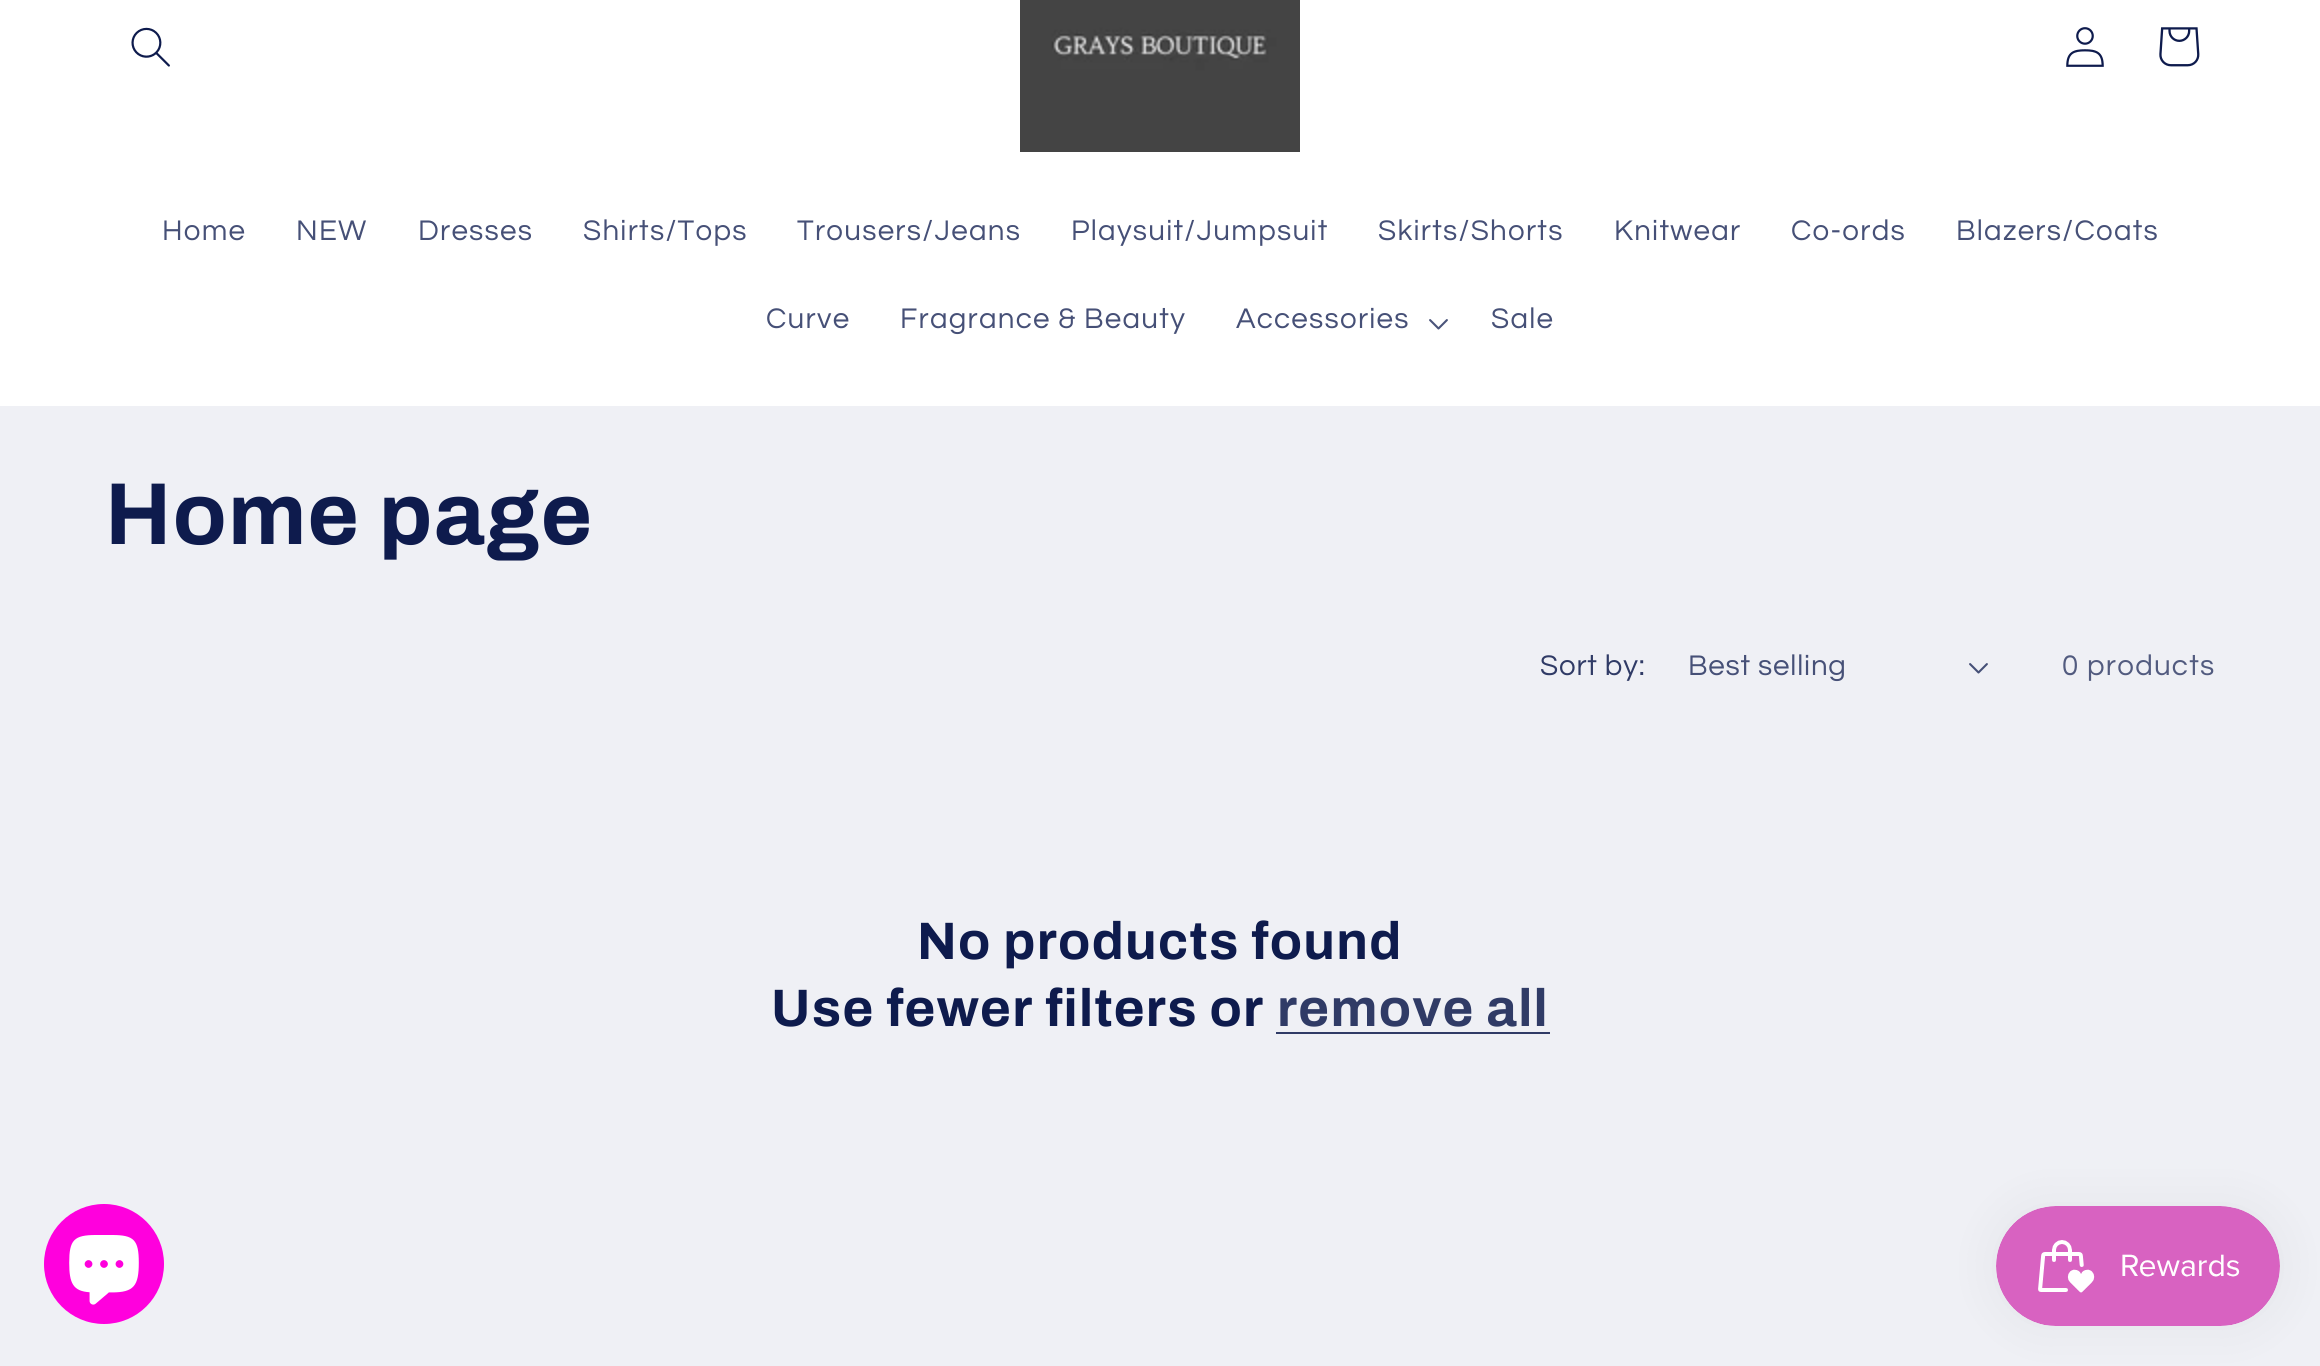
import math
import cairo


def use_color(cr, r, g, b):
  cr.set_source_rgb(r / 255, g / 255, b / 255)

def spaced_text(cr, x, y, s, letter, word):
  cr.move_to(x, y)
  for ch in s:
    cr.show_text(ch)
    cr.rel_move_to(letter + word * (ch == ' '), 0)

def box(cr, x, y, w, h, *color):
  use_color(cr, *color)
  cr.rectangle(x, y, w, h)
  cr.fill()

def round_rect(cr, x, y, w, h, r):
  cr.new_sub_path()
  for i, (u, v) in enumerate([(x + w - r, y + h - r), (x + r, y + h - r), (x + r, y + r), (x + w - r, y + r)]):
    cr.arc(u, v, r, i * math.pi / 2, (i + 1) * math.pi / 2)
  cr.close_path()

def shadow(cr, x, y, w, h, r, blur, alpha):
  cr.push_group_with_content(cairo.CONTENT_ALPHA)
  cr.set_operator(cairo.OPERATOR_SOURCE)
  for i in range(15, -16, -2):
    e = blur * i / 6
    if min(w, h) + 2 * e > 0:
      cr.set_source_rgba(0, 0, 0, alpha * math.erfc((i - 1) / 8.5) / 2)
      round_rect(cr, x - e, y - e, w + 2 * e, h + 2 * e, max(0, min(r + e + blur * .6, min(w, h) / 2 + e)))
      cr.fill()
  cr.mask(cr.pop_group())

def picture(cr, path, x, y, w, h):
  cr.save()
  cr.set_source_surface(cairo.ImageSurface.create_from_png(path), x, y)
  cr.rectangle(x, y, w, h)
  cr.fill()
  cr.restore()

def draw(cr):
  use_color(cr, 239, 240, 245)
  cr.paint()
  box(cr, 0, 0, 2320, 406, 255, 255, 255)
  picture(cr, "img_01.png", 131, 27, 39, 40)
  picture(cr, "img_02.png", 1020, 0, 280, 152)
  picture(cr, "img_03.png", 2066, 27, 38, 40)
  picture(cr, "img_04.png", 2159, 27, 41, 40)
  picture(cr, "img_05.png", 1429, 319, 19, 11)
  picture(cr, "img_06.png", 1969, 663, 19, 11)
  box(cr, 1276, 1032, 274, 2, 48, 59, 102)
  use_color(cr, 255, 0, 221)
  cr.arc(104, 1264, 60, 0, 2 * math.pi)
  cr.fill()
  picture(cr, "img_07.png", 69, 1235, 70, 70)
  use_color(cr, 0, 0, 0)
  shadow(cr, 1996, 1206, 284, 120, 60, 25, 0.05)
  picture(cr, "img_08.png", 1996, 1206, 284, 120)
  cr.select_font_face("Questrial")
  cr.set_font_size(29.5)
  use_color(cr, 70, 80, 119)
  spaced_text(cr, 162, 240, "Home", 1.25, 0)
  spaced_text(cr, 296, 240, "NEW", 1.25, 0)
  spaced_text(cr, 418, 240, "Dresses", 1.25, 0)
  spaced_text(cr, 583, 240, "Shirts/Tops", 1.25, 0)
  spaced_text(cr, 797, 240, "Trousers/Jeans", 1.25, 0)
  spaced_text(cr, 1071, 240, "Playsuit/Jumpsuit", 1.25, 0)
  spaced_text(cr, 1378, 240, "Skirts/Shorts", 1.25, 0)
  spaced_text(cr, 1614, 240, "Knitwear", 1.25, 0)
  spaced_text(cr, 1791, 240, "Co-ords", 1.25, 0)
  spaced_text(cr, 1956, 240, "Blazers/Coats", 1.25, 0)
  spaced_text(cr, 766, 328, "Curve", 1.25, 0)
  spaced_text(cr, 900, 328, "Fragrance & Beauty", 1.25, 0)
  spaced_text(cr, 1236, 328, "Accessories", 1.25, 0)
  spaced_text(cr, 1491, 328, "Sale", 1.25, 0)
  cr.select_font_face("Archivo", cairo.FONT_SLANT_NORMAL, cairo.FONT_WEIGHT_BOLD)
  cr.set_font_size(88)
  use_color(cr, 14, 27, 77)
  spaced_text(cr, 105, 544, "Home page", 1.3, 0)
  cr.select_font_face("Questrial")
  cr.set_font_size(29.5)
  use_color(cr, 48, 59, 102)
  spaced_text(cr, 1540, 675, "Sort by:", 0.8, 0)
  use_color(cr, 70, 80, 119)
  spaced_text(cr, 1688, 675, "Best selling", 0.8, 0)
  use_color(cr, 82, 91, 127)
  spaced_text(cr, 2062, 675, "0 products", 1.25, 0)
  cr.select_font_face("Archivo", cairo.FONT_SLANT_NORMAL, cairo.FONT_WEIGHT_BOLD)
  cr.set_font_size(52.75)
  use_color(cr, 14, 27, 77)
  spaced_text(cr, 917, 959, "No products found", 1.3, 0)
  spaced_text(cr, 771, 1026, "Use fewer filters or", 1.3, 0)
  use_color(cr, 48, 59, 102)
  spaced_text(cr, 1277, 1026, "remove all", 1.3, 0)


surface = cairo.ImageSurface(cairo.FORMAT_RGB24, 2320, 1366)
cr = cairo.Context(surface)
options = cairo.FontOptions()
options.set_hint_metrics(cairo.HINT_METRICS_OFF)
options.set_hint_style(cairo.HINT_STYLE_NONE)
cr.set_font_options(options)
cr.set_miter_limit(4)
draw(cr)
surface.write_to_png("out.png")
